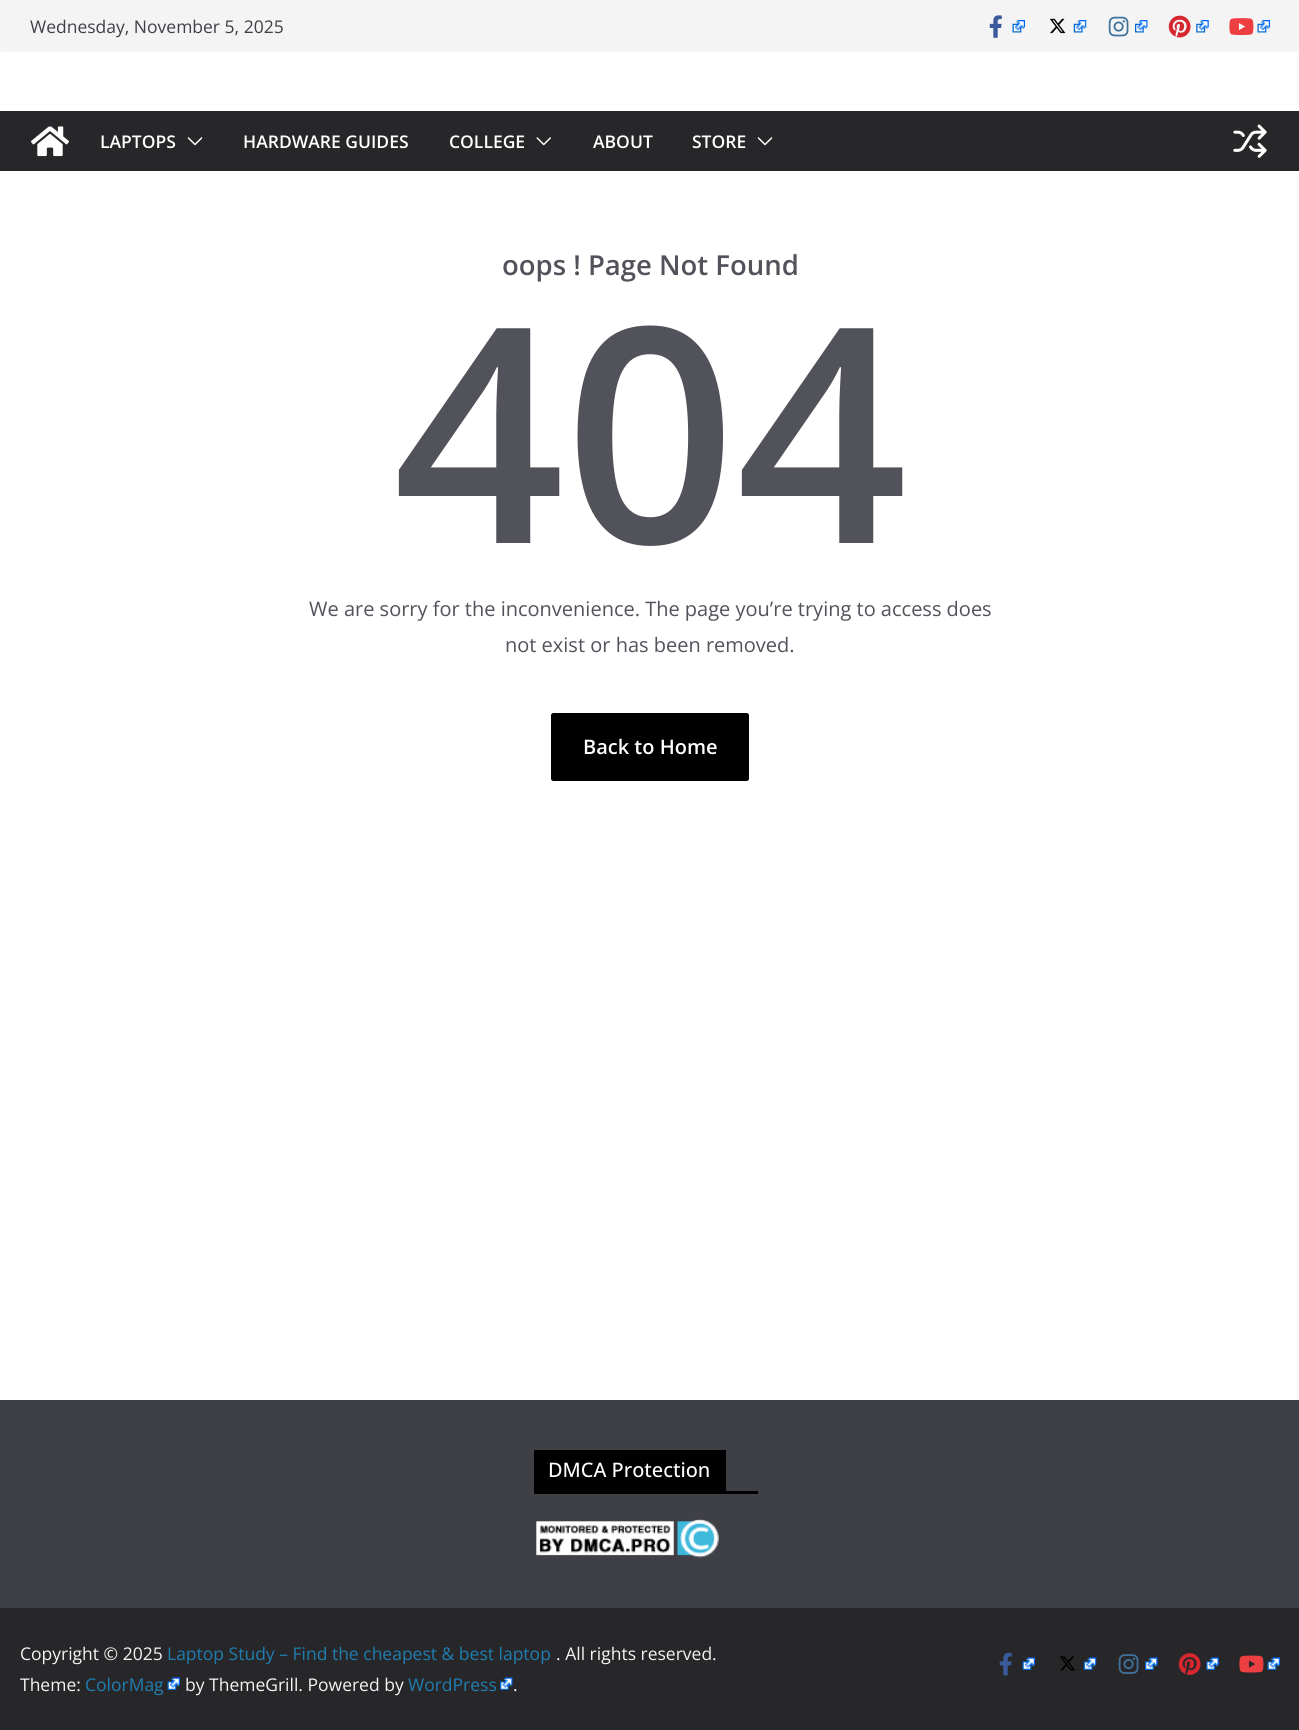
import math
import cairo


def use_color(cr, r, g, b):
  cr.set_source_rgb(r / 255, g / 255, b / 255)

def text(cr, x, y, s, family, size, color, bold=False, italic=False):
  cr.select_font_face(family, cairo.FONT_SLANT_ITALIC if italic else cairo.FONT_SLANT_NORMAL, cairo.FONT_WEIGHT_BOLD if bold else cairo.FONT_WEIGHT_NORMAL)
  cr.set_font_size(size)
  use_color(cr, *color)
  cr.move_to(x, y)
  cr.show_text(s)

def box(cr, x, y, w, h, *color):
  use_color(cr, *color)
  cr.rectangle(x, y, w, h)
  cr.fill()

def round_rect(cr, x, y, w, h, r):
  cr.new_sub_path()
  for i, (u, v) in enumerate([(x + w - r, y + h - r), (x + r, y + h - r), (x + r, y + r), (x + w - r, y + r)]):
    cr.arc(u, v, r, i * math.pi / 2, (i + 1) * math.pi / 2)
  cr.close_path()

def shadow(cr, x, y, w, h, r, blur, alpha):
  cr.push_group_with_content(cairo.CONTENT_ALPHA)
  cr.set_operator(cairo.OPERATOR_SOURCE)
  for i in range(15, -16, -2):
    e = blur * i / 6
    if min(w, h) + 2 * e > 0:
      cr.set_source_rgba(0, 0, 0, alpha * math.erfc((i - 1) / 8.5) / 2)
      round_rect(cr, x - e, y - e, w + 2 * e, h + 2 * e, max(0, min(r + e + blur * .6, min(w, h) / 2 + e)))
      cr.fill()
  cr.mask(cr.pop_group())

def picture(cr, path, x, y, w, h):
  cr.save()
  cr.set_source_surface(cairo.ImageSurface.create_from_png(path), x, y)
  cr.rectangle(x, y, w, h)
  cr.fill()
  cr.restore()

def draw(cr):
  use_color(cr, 255, 255, 255)
  cr.paint()
  use_color(cr, 0, 0, 0)
  shadow(cr, 0, 0, 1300, 51, 0, 1, 0.1)
  box(cr, 0, 0, 1299, 51, 244, 244, 245)
  picture(cr, "img_01.png", 1012, 20, 13, 13)
  picture(cr, "img_02.png", 989, 15, 13, 23)
  picture(cr, "img_03.png", 1073, 20, 14, 13)
  picture(cr, "img_04.png", 1049, 18, 17, 16)
  picture(cr, "img_05.png", 1135, 20, 13, 13)
  picture(cr, "img_06.png", 1108, 16, 21, 21)
  picture(cr, "img_07.png", 1196, 20, 13, 13)
  picture(cr, "img_08.png", 1168, 15, 23, 23)
  picture(cr, "img_01.png", 1257, 20, 13, 13)
  picture(cr, "img_09.png", 1229, 18, 25, 17)
  box(cr, 0, 111, 1299, 60, 39, 39, 42)
  picture(cr, "img_10.png", 31, 126, 38, 31)
  picture(cr, "img_11.png", 187, 137, 16, 9)
  picture(cr, "img_12.png", 536, 137, 15, 9)
  picture(cr, "img_11.png", 757, 137, 16, 9)
  picture(cr, "img_13.png", 1233, 124, 34, 34)
  use_color(cr, 0, 0, 0)
  round_rect(cr, 551.5, 713.5, 197, 67, 2)
  cr.fill_preserve()
  cr.set_line_width(1)
  cr.stroke()
  box(cr, 0, 1400, 1299, 208, 63, 63, 70)
  box(cr, 534, 1491, 224, 3, 0, 0, 0)
  box(cr, 534, 1450, 192, 41, 0, 0, 0)
  picture(cr, "img_14.png", 536, 1518, 183, 40)
  box(cr, 0, 1608, 1299, 122, 39, 39, 42)
  picture(cr, "img_15.png", 167, 1677, 13, 13)
  picture(cr, "img_16.png", 500, 1677, 13, 13)
  picture(cr, "img_17.png", 1022, 1657, 13, 13)
  picture(cr, "img_18.png", 999, 1652, 13, 24)
  picture(cr, "img_19.png", 1083, 1657, 14, 13)
  picture(cr, "img_20.png", 1060, 1656, 16, 15)
  picture(cr, "img_16.png", 1145, 1657, 13, 13)
  picture(cr, "img_21.png", 1118, 1654, 21, 20)
  picture(cr, "img_22.png", 1206, 1657, 13, 13)
  picture(cr, "img_23.png", 1178, 1653, 23, 22)
  picture(cr, "img_15.png", 1267, 1657, 13, 13)
  picture(cr, "img_24.png", 1239, 1655, 25, 18)
  text(cr, 30, 33, "Wednesday, November 5, 2025", "Open Sans", 17.5, (63, 63, 70))
  text(cr, 100, 148, "LAPTOPS", "Open Sans SemiBold", 17.5, (255, 255, 255))
  text(cr, 243, 148, "HARDWARE GUIDES", "Open Sans SemiBold", 17.5, (255, 255, 255))
  text(cr, 449, 148, "COLLEGE", "Open Sans SemiBold", 17.5, (255, 255, 255))
  text(cr, 593, 148, "ABOUT", "Open Sans SemiBold", 17.5, (255, 255, 255))
  text(cr, 692, 148, "STORE", "Open Sans SemiBold", 17.5, (255, 255, 255))
  text(cr, 502, 275, "oops ! Page Not Found", "Open Sans SemiBold", 27.5, (82, 82, 91))
  text(cr, 393, 543, "404", "Open Sans SemiBold", 300, (82, 82, 91))
  text(cr, 309, 616, "We are sorry for the inconvenience. The page you’re trying to access does", "Open Sans", 20, (82, 82, 91))
  text(cr, 505, 652, "not exist or has been removed.", "Open Sans", 20, (82, 82, 91))
  text(cr, 583, 754, "Back to Home", "Open Sans SemiBold", 20, (255, 255, 255))
  text(cr, 548, 1477, "DMCA Protection", "Open Sans Medium", 20, (255, 255, 255))
  text(cr, 20, 1660, "Copyright © 2025", "Open Sans", 17.5, (244, 244, 245))
  text(cr, 167, 1660, "Laptop Study – Find the cheapest & best laptop", "Open Sans", 17.5, (32, 125, 175))
  text(cr, 556, 1660, ". All rights reserved.", "Open Sans", 17.5, (244, 244, 245))
  text(cr, 20, 1691, "Theme:", "Open Sans", 17.5, (244, 244, 245))
  text(cr, 85, 1691, "ColorMag", "Open Sans", 17.5, (32, 125, 175))
  text(cr, 185, 1691, "by ThemeGrill. Powered by", "Open Sans", 17.5, (244, 244, 245))
  text(cr, 408, 1691, "WordPress", "Open Sans", 17.5, (32, 125, 175))
  text(cr, 513, 1691, ".", "Open Sans", 17.5, (244, 244, 245))


surface = cairo.ImageSurface(cairo.FORMAT_RGB24, 1299, 1730)
cr = cairo.Context(surface)
options = cairo.FontOptions()
options.set_hint_metrics(cairo.HINT_METRICS_OFF)
options.set_hint_style(cairo.HINT_STYLE_NONE)
cr.set_font_options(options)
cr.set_miter_limit(4)
draw(cr)
surface.write_to_png("out.png")
